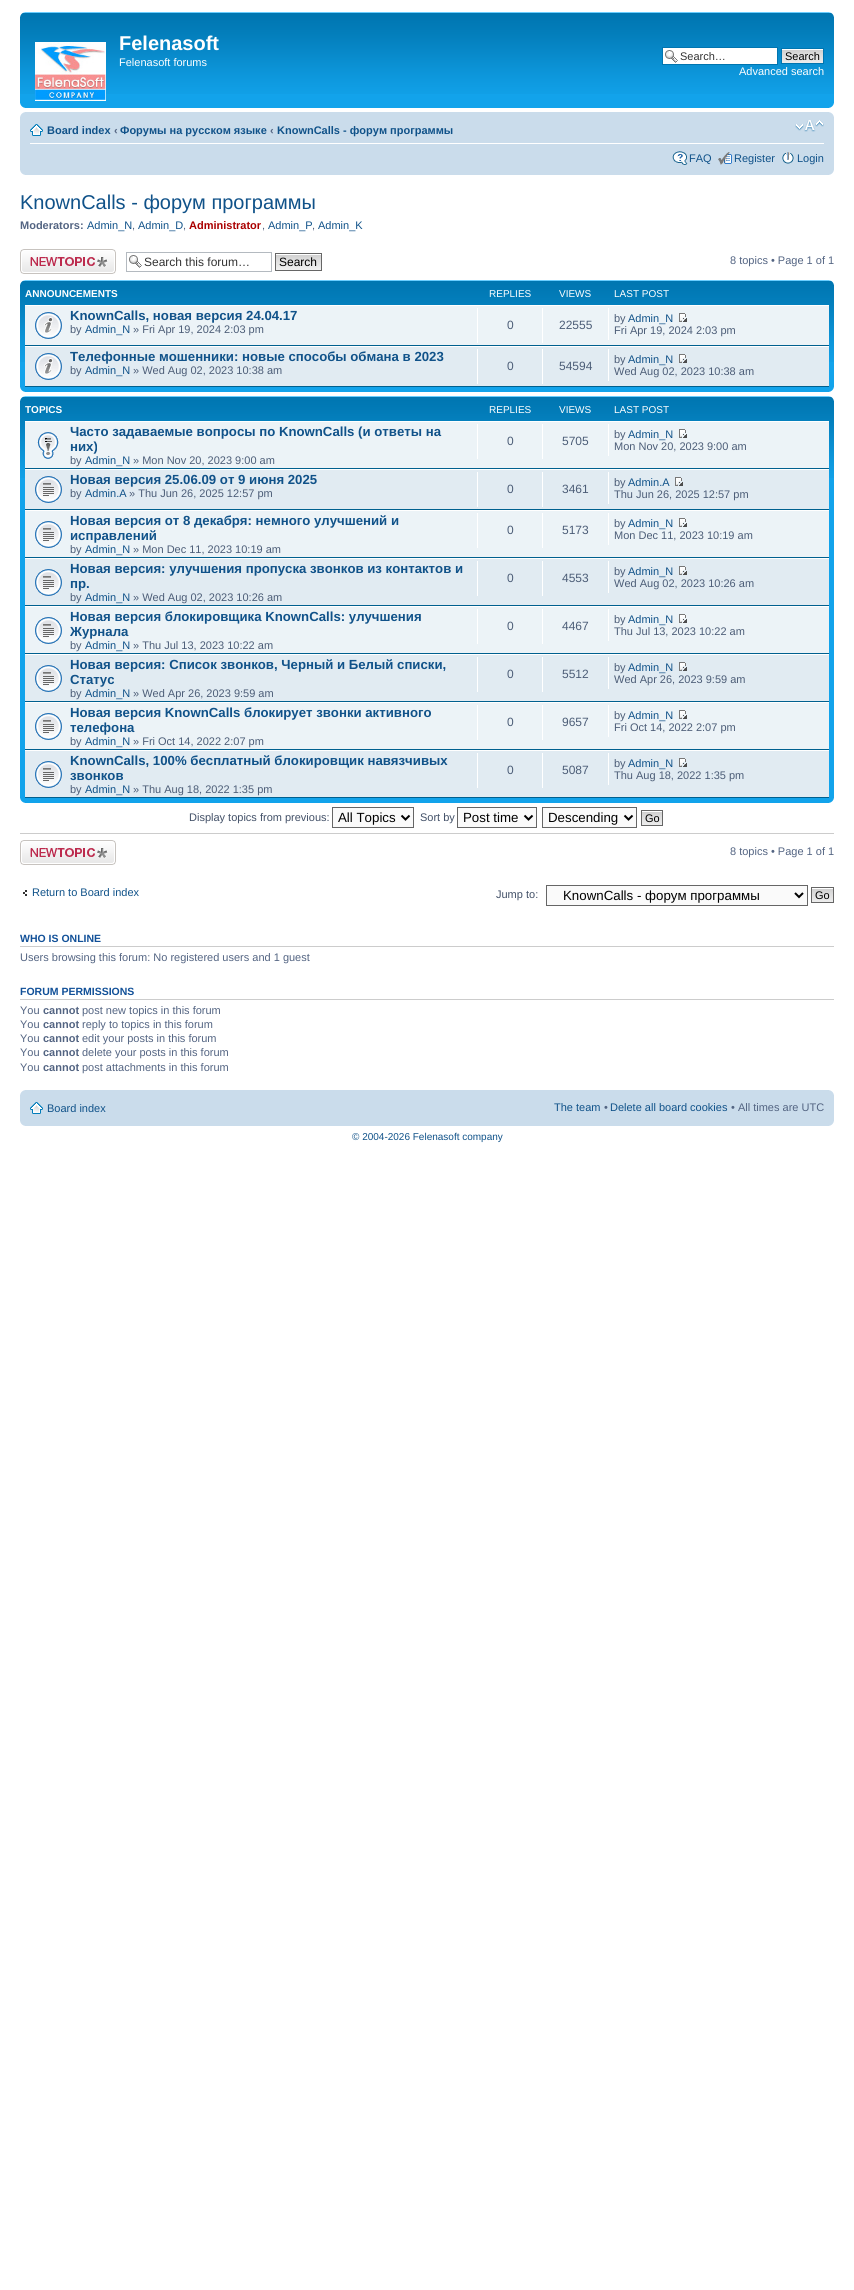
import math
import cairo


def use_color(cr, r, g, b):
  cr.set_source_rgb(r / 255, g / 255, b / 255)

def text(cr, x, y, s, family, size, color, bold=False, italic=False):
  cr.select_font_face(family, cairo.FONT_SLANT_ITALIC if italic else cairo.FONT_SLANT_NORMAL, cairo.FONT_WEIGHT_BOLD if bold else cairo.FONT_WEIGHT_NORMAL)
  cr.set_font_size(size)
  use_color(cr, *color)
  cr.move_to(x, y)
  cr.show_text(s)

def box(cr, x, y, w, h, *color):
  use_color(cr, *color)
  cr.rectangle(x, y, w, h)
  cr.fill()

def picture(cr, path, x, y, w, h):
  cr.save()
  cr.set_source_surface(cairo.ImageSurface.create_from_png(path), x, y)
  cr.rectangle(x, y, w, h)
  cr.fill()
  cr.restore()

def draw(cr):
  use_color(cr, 255, 255, 255)
  cr.paint()
  box(cr, 20, 94, 814, 14, 18, 163, 235)
  picture(cr, "img_01.png", 20, 12, 814, 82)
  picture(cr, "img_02.png", 20, 12, 5, 5)
  picture(cr, "img_03.png", 829, 12, 5, 5)
  picture(cr, "img_04.png", 35, 42, 71, 59)
  box(cr, 663, 48, 114, 16, 255, 255, 255)
  picture(cr, "img_05.png", 665, 50, 13, 13)
  cr.rectangle(662.5, 47.5, 115, 17)
  use_color(cr, 0, 117, 176)
  cr.set_line_width(1)
  cr.stroke()
  picture(cr, "img_06.png", 782, 49, 41, 14)
  cr.rectangle(781.5, 48.5, 42, 15)
  cr.stroke()
  picture(cr, "img_07.png", 20, 103, 5, 5)
  picture(cr, "img_08.png", 829, 103, 5, 5)
  box(cr, 20, 112, 814, 63, 202, 220, 235)
  picture(cr, "img_09.png", 20, 112, 5, 5)
  picture(cr, "img_10.png", 829, 112, 5, 5)
  box(cr, 30, 143, 794, 1, 255, 255, 255)
  picture(cr, "img_11.png", 30, 124, 13, 12)
  picture(cr, "img_12.png", 795, 120, 29, 12)
  picture(cr, "img_13.png", 672, 151, 16, 14)
  picture(cr, "img_14.png", 718, 152, 14, 13)
  picture(cr, "img_15.png", 782, 152, 12, 12)
  picture(cr, "img_16.png", 20, 170, 5, 5)
  picture(cr, "img_17.png", 829, 170, 5, 5)
  picture(cr, "img_18.png", 20, 249, 96, 25)
  picture(cr, "img_05.png", 129, 255, 13, 13)
  cr.rectangle(126.5, 252.5, 145, 19)
  use_color(cr, 180, 186, 192)
  cr.stroke()
  picture(cr, "img_19.png", 276, 254, 45, 16)
  cr.rectangle(275.5, 253.5, 46, 17)
  use_color(cr, 102, 102, 102)
  cr.stroke()
  box(cr, 20, 362, 814, 30, 18, 163, 235)
  picture(cr, "img_01.png", 20, 280, 814, 82)
  picture(cr, "img_02.png", 20, 280, 5, 5)
  picture(cr, "img_03.png", 829, 280, 5, 5)
  box(cr, 25, 306, 804, 39, 236, 243, 247)
  box(cr, 25, 305, 804, 1, 255, 255, 255)
  box(cr, 25, 345, 804, 1, 0, 96, 143)
  picture(cr, "img_20.png", 35, 312, 27, 27)
  box(cr, 477, 308, 1, 35, 255, 255, 255)
  box(cr, 542, 308, 1, 35, 255, 255, 255)
  box(cr, 608, 308, 1, 32, 255, 255, 255)
  picture(cr, "img_21.png", 679, 313, 8, 9)
  box(cr, 25, 347, 804, 39, 225, 235, 242)
  box(cr, 25, 346, 804, 1, 255, 255, 255)
  box(cr, 25, 386, 804, 1, 0, 96, 143)
  picture(cr, "img_22.png", 35, 353, 27, 27)
  box(cr, 477, 349, 1, 35, 255, 255, 255)
  box(cr, 542, 349, 1, 35, 255, 255, 255)
  box(cr, 608, 349, 1, 32, 255, 255, 255)
  picture(cr, "img_23.png", 679, 354, 8, 9)
  picture(cr, "img_07.png", 20, 387, 5, 5)
  picture(cr, "img_08.png", 829, 387, 5, 5)
  box(cr, 20, 478, 814, 325, 18, 163, 235)
  picture(cr, "img_01.png", 20, 396, 814, 82)
  picture(cr, "img_02.png", 20, 396, 5, 5)
  picture(cr, "img_03.png", 829, 396, 5, 5)
  box(cr, 25, 422, 804, 46, 236, 243, 247)
  box(cr, 25, 421, 804, 1, 255, 255, 255)
  box(cr, 25, 468, 804, 1, 0, 96, 143)
  picture(cr, "img_24.png", 37, 432, 22, 27)
  box(cr, 477, 424, 1, 35, 255, 255, 255)
  box(cr, 542, 424, 1, 35, 255, 255, 255)
  box(cr, 608, 424, 1, 32, 255, 255, 255)
  picture(cr, "img_21.png", 679, 429, 8, 9)
  box(cr, 25, 470, 804, 39, 225, 235, 242)
  box(cr, 25, 469, 804, 1, 255, 255, 255)
  box(cr, 25, 509, 804, 1, 0, 96, 143)
  picture(cr, "img_25.png", 35, 476, 27, 27)
  box(cr, 477, 472, 1, 35, 255, 255, 255)
  box(cr, 542, 472, 1, 35, 255, 255, 255)
  box(cr, 608, 472, 1, 32, 255, 255, 255)
  picture(cr, "img_23.png", 675, 477, 8, 9)
  box(cr, 25, 511, 804, 46, 236, 243, 247)
  box(cr, 25, 510, 804, 1, 255, 255, 255)
  box(cr, 25, 557, 804, 1, 0, 96, 143)
  picture(cr, "img_26.png", 35, 521, 27, 27)
  box(cr, 477, 513, 1, 35, 255, 255, 255)
  box(cr, 542, 513, 1, 35, 255, 255, 255)
  box(cr, 608, 513, 1, 32, 255, 255, 255)
  picture(cr, "img_21.png", 679, 518, 8, 9)
  box(cr, 25, 559, 804, 46, 225, 235, 242)
  box(cr, 25, 558, 804, 1, 255, 255, 255)
  box(cr, 25, 605, 804, 1, 0, 96, 143)
  picture(cr, "img_25.png", 35, 569, 27, 27)
  box(cr, 477, 561, 1, 35, 255, 255, 255)
  box(cr, 542, 561, 1, 35, 255, 255, 255)
  box(cr, 608, 561, 1, 32, 255, 255, 255)
  picture(cr, "img_23.png", 679, 566, 8, 9)
  box(cr, 25, 607, 804, 46, 236, 243, 247)
  box(cr, 25, 606, 804, 1, 255, 255, 255)
  box(cr, 25, 653, 804, 1, 0, 96, 143)
  picture(cr, "img_26.png", 35, 617, 27, 27)
  box(cr, 477, 609, 1, 35, 255, 255, 255)
  box(cr, 542, 609, 1, 35, 255, 255, 255)
  box(cr, 608, 609, 1, 32, 255, 255, 255)
  picture(cr, "img_21.png", 679, 614, 8, 9)
  box(cr, 25, 655, 804, 46, 225, 235, 242)
  box(cr, 25, 654, 804, 1, 255, 255, 255)
  box(cr, 25, 701, 804, 1, 0, 96, 143)
  picture(cr, "img_25.png", 35, 665, 27, 27)
  box(cr, 477, 657, 1, 35, 255, 255, 255)
  box(cr, 542, 657, 1, 35, 255, 255, 255)
  box(cr, 608, 657, 1, 32, 255, 255, 255)
  picture(cr, "img_23.png", 679, 662, 8, 9)
  box(cr, 25, 703, 804, 46, 236, 243, 247)
  box(cr, 25, 702, 804, 1, 255, 255, 255)
  box(cr, 25, 749, 804, 1, 0, 96, 143)
  picture(cr, "img_26.png", 35, 713, 27, 27)
  box(cr, 477, 705, 1, 35, 255, 255, 255)
  box(cr, 542, 705, 1, 35, 255, 255, 255)
  box(cr, 608, 705, 1, 32, 255, 255, 255)
  picture(cr, "img_21.png", 679, 710, 8, 9)
  box(cr, 25, 751, 804, 46, 225, 235, 242)
  box(cr, 25, 750, 804, 1, 255, 255, 255)
  box(cr, 25, 797, 804, 1, 0, 96, 143)
  picture(cr, "img_25.png", 35, 761, 27, 27)
  box(cr, 477, 753, 1, 35, 255, 255, 255)
  box(cr, 542, 753, 1, 35, 255, 255, 255)
  box(cr, 608, 753, 1, 32, 255, 255, 255)
  picture(cr, "img_23.png", 679, 758, 8, 9)
  picture(cr, "img_07.png", 20, 798, 5, 5)
  picture(cr, "img_08.png", 829, 798, 5, 5)
  use_color(cr, 250, 250, 250)
  cr.rectangle(332.5, 807.5, 81, 20)
  cr.fill_preserve()
  use_color(cr, 102, 102, 102)
  cr.stroke()
  cr.new_path()
  cr.move_to(401.5, 815.5)
  cr.line_to(405.5, 819.5)
  cr.line_to(409.5, 815.5)
  use_color(cr, 0, 0, 0)
  cr.set_line_width(2)
  cr.stroke()
  use_color(cr, 250, 250, 250)
  cr.rectangle(457.5, 807.5, 79, 20)
  cr.fill_preserve()
  use_color(cr, 102, 102, 102)
  cr.set_line_width(1)
  cr.stroke()
  cr.new_path()
  cr.move_to(524.5, 815.5)
  cr.line_to(528.5, 819.5)
  cr.line_to(532.5, 815.5)
  use_color(cr, 0, 0, 0)
  cr.set_line_width(2)
  cr.stroke()
  use_color(cr, 250, 250, 250)
  cr.rectangle(542.5, 807.5, 94, 20)
  cr.fill_preserve()
  use_color(cr, 102, 102, 102)
  cr.set_line_width(1)
  cr.stroke()
  cr.new_path()
  cr.move_to(624.5, 815.5)
  cr.line_to(628.5, 819.5)
  cr.line_to(632.5, 815.5)
  use_color(cr, 0, 0, 0)
  cr.set_line_width(2)
  cr.stroke()
  picture(cr, "img_27.png", 642, 811, 20, 14)
  cr.rectangle(641.5, 810.5, 21, 15)
  use_color(cr, 102, 102, 102)
  cr.set_line_width(1)
  cr.stroke()
  box(cr, 20, 833, 814, 1, 204, 204, 204)
  picture(cr, "img_18.png", 20, 840, 96, 25)
  picture(cr, "img_28.png", 23, 890, 4, 6)
  use_color(cr, 250, 250, 250)
  cr.rectangle(546.5, 885.5, 261, 20)
  cr.fill_preserve()
  use_color(cr, 102, 102, 102)
  cr.stroke()
  cr.new_path()
  cr.move_to(795, 893)
  cr.line_to(799, 897)
  cr.line_to(803, 893)
  use_color(cr, 0, 0, 0)
  cr.set_line_width(2)
  cr.stroke()
  picture(cr, "img_29.png", 812, 888, 21, 14)
  cr.rectangle(811.5, 887.5, 22, 15)
  use_color(cr, 102, 102, 102)
  cr.set_line_width(1)
  cr.stroke()
  box(cr, 20, 946, 814, 1, 204, 204, 204)
  box(cr, 20, 999, 814, 1, 204, 204, 204)
  box(cr, 20, 1090, 814, 36, 202, 220, 235)
  picture(cr, "img_09.png", 20, 1090, 5, 5)
  picture(cr, "img_10.png", 829, 1090, 5, 5)
  picture(cr, "img_11.png", 30, 1102, 13, 12)
  picture(cr, "img_16.png", 20, 1121, 5, 5)
  picture(cr, "img_17.png", 829, 1121, 5, 5)
  text(cr, 119, 50, "Felenasoft", "Liberation Sans", 20, (255, 255, 255), bold=True)
  text(cr, 119, 66, "Felenasoft forums", "Liberation Sans", 11, (255, 255, 255))
  text(cr, 680, 60, "Search…", "Liberation Sans", 11, (51, 51, 51))
  text(cr, 785, 60, "Search", "Liberation Sans", 11, (0, 0, 0))
  text(cr, 739, 75, "Advanced search", "Liberation Sans", 11, (255, 255, 255))
  text(cr, 47, 134, "Board index", "Liberation Sans", 11, (16, 82, 137), bold=True)
  text(cr, 114, 134, "‹", "Liberation Sans", 11, (83, 100, 130), bold=True)
  text(cr, 120, 134, "Форумы на русском языке", "Liberation Sans", 11, (16, 82, 137), bold=True)
  text(cr, 270, 134, "‹", "Liberation Sans", 11, (83, 100, 130), bold=True)
  text(cr, 277, 134, "KnownCalls - форум программы", "Liberation Sans", 11, (16, 82, 137), bold=True)
  text(cr, 689, 162, "FAQ", "Liberation Sans", 11, (16, 82, 137))
  text(cr, 734, 162, "Register", "Liberation Sans", 11, (16, 82, 137))
  text(cr, 797, 162, "Login", "Liberation Sans", 11, (16, 82, 137))
  text(cr, 20, 209, "KnownCalls - форум программы", "Liberation Sans", 20, (16, 82, 137))
  text(cr, 20, 229, "Moderators:", "Liberation Sans", 11, (83, 100, 130), bold=True)
  text(cr, 87, 229, "Admin_N", "Liberation Sans", 11, (16, 82, 137))
  text(cr, 132, 229, ",", "Liberation Sans", 11, (83, 100, 130))
  text(cr, 138, 229, "Admin_D", "Liberation Sans", 11, (16, 82, 137))
  text(cr, 183, 229, ",", "Liberation Sans", 11, (83, 100, 130))
  text(cr, 189, 229, "Administrator", "Liberation Sans", 11, (170, 0, 0), bold=True)
  text(cr, 262, 229, ",", "Liberation Sans", 11, (83, 100, 130))
  text(cr, 268, 229, "Admin_P", "Liberation Sans", 11, (16, 82, 137))
  text(cr, 312, 229, ",", "Liberation Sans", 11, (83, 100, 130))
  text(cr, 318, 229, "Admin_K", "Liberation Sans", 11, (16, 82, 137))
  text(cr, 144, 266, "Search this forum…", "Liberation Sans", 12, (51, 51, 51))
  text(cr, 279, 266, "Search", "Liberation Sans", 12, (0, 0, 0))
  text(cr, 730, 264, "8 topics • Page 1 of 1", "Liberation Sans", 11, (83, 100, 130))
  text(cr, 25, 297, "ANNOUNCEMENTS", "Liberation Sans", 10, (255, 255, 255), bold=True)
  text(cr, 489, 297, "REPLIES", "Liberation Sans", 10, (255, 255, 255))
  text(cr, 559, 297, "VIEWS", "Liberation Sans", 10, (255, 255, 255))
  text(cr, 614, 297, "LAST POST", "Liberation Sans", 10, (255, 255, 255))
  text(cr, 70, 320, "KnownCalls, новая версия 24.04.17", "Liberation Sans", 13.2, (16, 82, 137), bold=True)
  text(cr, 70, 333, "by", "Liberation Sans", 11, (76, 93, 119))
  text(cr, 85, 333, "Admin_N", "Liberation Sans", 11, (16, 82, 137))
  text(cr, 133, 333, "» Fri Apr 19, 2024 2:03 pm", "Liberation Sans", 11, (76, 93, 119))
  text(cr, 507, 329, "0", "Liberation Sans", 12, (76, 93, 119))
  text(cr, 559, 329, "22555", "Liberation Sans", 12, (76, 93, 119))
  text(cr, 614, 322, "by", "Liberation Sans", 11, (76, 93, 119))
  text(cr, 628, 322, "Admin_N", "Liberation Sans", 11, (16, 82, 137))
  text(cr, 614, 334, "Fri Apr 19, 2024 2:03 pm", "Liberation Sans", 11, (76, 93, 119))
  text(cr, 70, 361, "Телефонные мошенники: новые способы обмана в 2023", "Liberation Sans", 13.2, (16, 82, 137), bold=True)
  text(cr, 70, 374, "by", "Liberation Sans", 11, (76, 93, 119))
  text(cr, 85, 374, "Admin_N", "Liberation Sans", 11, (16, 82, 137))
  text(cr, 133, 374, "» Wed Aug 02, 2023 10:38 am", "Liberation Sans", 11, (76, 93, 119))
  text(cr, 507, 370, "0", "Liberation Sans", 12, (76, 93, 119))
  text(cr, 559, 370, "54594", "Liberation Sans", 12, (76, 93, 119))
  text(cr, 614, 363, "by", "Liberation Sans", 11, (76, 93, 119))
  text(cr, 628, 363, "Admin_N", "Liberation Sans", 11, (16, 82, 137))
  text(cr, 614, 375, "Wed Aug 02, 2023 10:38 am", "Liberation Sans", 11, (76, 93, 119))
  text(cr, 25, 413, "TOPICS", "Liberation Sans", 10, (255, 255, 255), bold=True)
  text(cr, 489, 413, "REPLIES", "Liberation Sans", 10, (255, 255, 255))
  text(cr, 559, 413, "VIEWS", "Liberation Sans", 10, (255, 255, 255))
  text(cr, 614, 413, "LAST POST", "Liberation Sans", 10, (255, 255, 255))
  text(cr, 70, 436, "Часто задаваемые вопросы по KnownCalls (и ответы на", "Liberation Sans", 13.2, (16, 82, 137), bold=True)
  text(cr, 70, 451, "них)", "Liberation Sans", 13.2, (16, 82, 137), bold=True)
  text(cr, 70, 464, "by", "Liberation Sans", 11, (76, 93, 119))
  text(cr, 85, 464, "Admin_N", "Liberation Sans", 11, (16, 82, 137))
  text(cr, 133, 464, "» Mon Nov 20, 2023 9:00 am", "Liberation Sans", 11, (76, 93, 119))
  text(cr, 507, 445, "0", "Liberation Sans", 12, (76, 93, 119))
  text(cr, 562, 445, "5705", "Liberation Sans", 12, (76, 93, 119))
  text(cr, 614, 438, "by", "Liberation Sans", 11, (76, 93, 119))
  text(cr, 628, 438, "Admin_N", "Liberation Sans", 11, (16, 82, 137))
  text(cr, 614, 450, "Mon Nov 20, 2023 9:00 am", "Liberation Sans", 11, (76, 93, 119))
  text(cr, 70, 484, "Новая версия 25.06.09 от 9 июня 2025", "Liberation Sans", 13.2, (16, 82, 137), bold=True)
  text(cr, 70, 497, "by", "Liberation Sans", 11, (76, 93, 119))
  text(cr, 85, 497, "Admin.A", "Liberation Sans", 11, (16, 82, 137))
  text(cr, 129, 497, "» Thu Jun 26, 2025 12:57 pm", "Liberation Sans", 11, (76, 93, 119))
  text(cr, 507, 493, "0", "Liberation Sans", 12, (76, 93, 119))
  text(cr, 562, 493, "3461", "Liberation Sans", 12, (76, 93, 119))
  text(cr, 614, 486, "by", "Liberation Sans", 11, (76, 93, 119))
  text(cr, 628, 486, "Admin.A", "Liberation Sans", 11, (16, 82, 137))
  text(cr, 614, 498, "Thu Jun 26, 2025 12:57 pm", "Liberation Sans", 11, (76, 93, 119))
  text(cr, 70, 525, "Новая версия от 8 декабря: немного улучшений и", "Liberation Sans", 13.2, (16, 82, 137), bold=True)
  text(cr, 70, 540, "исправлений", "Liberation Sans", 13.2, (16, 82, 137), bold=True)
  text(cr, 70, 553, "by", "Liberation Sans", 11, (76, 93, 119))
  text(cr, 85, 553, "Admin_N", "Liberation Sans", 11, (16, 82, 137))
  text(cr, 133, 553, "» Mon Dec 11, 2023 10:19 am", "Liberation Sans", 11, (76, 93, 119))
  text(cr, 507, 534, "0", "Liberation Sans", 12, (76, 93, 119))
  text(cr, 562, 534, "5173", "Liberation Sans", 12, (76, 93, 119))
  text(cr, 614, 527, "by", "Liberation Sans", 11, (76, 93, 119))
  text(cr, 628, 527, "Admin_N", "Liberation Sans", 11, (16, 82, 137))
  text(cr, 614, 539, "Mon Dec 11, 2023 10:19 am", "Liberation Sans", 11, (76, 93, 119))
  text(cr, 70, 573, "Новая версия: улучшения пропуска звонков из контактов и", "Liberation Sans", 13.2, (16, 82, 137), bold=True)
  text(cr, 70, 588, "пр.", "Liberation Sans", 13.2, (16, 82, 137), bold=True)
  text(cr, 70, 601, "by", "Liberation Sans", 11, (76, 93, 119))
  text(cr, 85, 601, "Admin_N", "Liberation Sans", 11, (16, 82, 137))
  text(cr, 133, 601, "» Wed Aug 02, 2023 10:26 am", "Liberation Sans", 11, (76, 93, 119))
  text(cr, 507, 582, "0", "Liberation Sans", 12, (76, 93, 119))
  text(cr, 562, 582, "4553", "Liberation Sans", 12, (76, 93, 119))
  text(cr, 614, 575, "by", "Liberation Sans", 11, (76, 93, 119))
  text(cr, 628, 575, "Admin_N", "Liberation Sans", 11, (16, 82, 137))
  text(cr, 614, 587, "Wed Aug 02, 2023 10:26 am", "Liberation Sans", 11, (76, 93, 119))
  text(cr, 70, 621, "Новая версия блокировщика KnownCalls: улучшения", "Liberation Sans", 13.2, (16, 82, 137), bold=True)
  text(cr, 70, 636, "Журнала", "Liberation Sans", 13.2, (16, 82, 137), bold=True)
  text(cr, 70, 649, "by", "Liberation Sans", 11, (76, 93, 119))
  text(cr, 85, 649, "Admin_N", "Liberation Sans", 11, (16, 82, 137))
  text(cr, 133, 649, "» Thu Jul 13, 2023 10:22 am", "Liberation Sans", 11, (76, 93, 119))
  text(cr, 507, 630, "0", "Liberation Sans", 12, (76, 93, 119))
  text(cr, 562, 630, "4467", "Liberation Sans", 12, (76, 93, 119))
  text(cr, 614, 623, "by", "Liberation Sans", 11, (76, 93, 119))
  text(cr, 628, 623, "Admin_N", "Liberation Sans", 11, (16, 82, 137))
  text(cr, 614, 635, "Thu Jul 13, 2023 10:22 am", "Liberation Sans", 11, (76, 93, 119))
  text(cr, 70, 669, "Новая версия: Список звонков, Черный и Белый списки,", "Liberation Sans", 13.2, (16, 82, 137), bold=True)
  text(cr, 70, 684, "Статус", "Liberation Sans", 13.2, (16, 82, 137), bold=True)
  text(cr, 70, 697, "by", "Liberation Sans", 11, (76, 93, 119))
  text(cr, 85, 697, "Admin_N", "Liberation Sans", 11, (16, 82, 137))
  text(cr, 133, 697, "» Wed Apr 26, 2023 9:59 am", "Liberation Sans", 11, (76, 93, 119))
  text(cr, 507, 678, "0", "Liberation Sans", 12, (76, 93, 119))
  text(cr, 562, 678, "5512", "Liberation Sans", 12, (76, 93, 119))
  text(cr, 614, 671, "by", "Liberation Sans", 11, (76, 93, 119))
  text(cr, 628, 671, "Admin_N", "Liberation Sans", 11, (16, 82, 137))
  text(cr, 614, 683, "Wed Apr 26, 2023 9:59 am", "Liberation Sans", 11, (76, 93, 119))
  text(cr, 70, 717, "Новая версия KnownCalls блокирует звонки активного", "Liberation Sans", 13.2, (16, 82, 137), bold=True)
  text(cr, 70, 732, "телефона", "Liberation Sans", 13.2, (16, 82, 137), bold=True)
  text(cr, 70, 745, "by", "Liberation Sans", 11, (76, 93, 119))
  text(cr, 85, 745, "Admin_N", "Liberation Sans", 11, (16, 82, 137))
  text(cr, 133, 745, "» Fri Oct 14, 2022 2:07 pm", "Liberation Sans", 11, (76, 93, 119))
  text(cr, 507, 726, "0", "Liberation Sans", 12, (76, 93, 119))
  text(cr, 562, 726, "9657", "Liberation Sans", 12, (76, 93, 119))
  text(cr, 614, 719, "by", "Liberation Sans", 11, (76, 93, 119))
  text(cr, 628, 719, "Admin_N", "Liberation Sans", 11, (16, 82, 137))
  text(cr, 614, 731, "Fri Oct 14, 2022 2:07 pm", "Liberation Sans", 11, (76, 93, 119))
  text(cr, 70, 765, "KnownCalls, 100% бесплатный блокировщик навязчивых", "Liberation Sans", 13.2, (16, 82, 137), bold=True)
  text(cr, 70, 780, "звонков", "Liberation Sans", 13.2, (16, 82, 137), bold=True)
  text(cr, 70, 793, "by", "Liberation Sans", 11, (76, 93, 119))
  text(cr, 85, 793, "Admin_N", "Liberation Sans", 11, (16, 82, 137))
  text(cr, 133, 793, "» Thu Aug 18, 2022 1:35 pm", "Liberation Sans", 11, (76, 93, 119))
  text(cr, 507, 774, "0", "Liberation Sans", 12, (76, 93, 119))
  text(cr, 562, 774, "5087", "Liberation Sans", 12, (76, 93, 119))
  text(cr, 614, 767, "by", "Liberation Sans", 11, (76, 93, 119))
  text(cr, 628, 767, "Admin_N", "Liberation Sans", 11, (16, 82, 137))
  text(cr, 614, 779, "Thu Aug 18, 2022 1:35 pm", "Liberation Sans", 11, (76, 93, 119))
  text(cr, 189, 821, "Display topics from previous:", "Liberation Sans", 11, (66, 80, 103))
  text(cr, 338, 822, "All Topics", "Liberation Sans", 13.3, (0, 0, 0))
  text(cr, 420, 821, "Sort by", "Liberation Sans", 11, (66, 80, 103))
  text(cr, 463, 822, "Post time", "Liberation Sans", 13.3, (0, 0, 0))
  text(cr, 548, 822, "Descending", "Liberation Sans", 13.3, (0, 0, 0))
  text(cr, 645, 822, "Go", "Liberation Sans", 11, (0, 0, 0))
  text(cr, 730, 855, "8 topics • Page 1 of 1", "Liberation Sans", 11, (83, 100, 130))
  text(cr, 32, 896, "Return to Board index", "Liberation Sans", 11, (16, 82, 137))
  text(cr, 496, 898, "Jump to:", "Liberation Sans", 11, (66, 80, 103))
  text(cr, 563, 900, "KnownCalls - форум программы", "Liberation Sans", 13.3, (0, 0, 0))
  text(cr, 815, 899, "Go", "Liberation Sans", 11, (0, 0, 0))
  text(cr, 20, 942, "WHO IS ONLINE", "Liberation Sans", 10.5, (17, 80, 152), bold=True)
  text(cr, 20, 961, "Users browsing this forum: No registered users and 1 guest", "Liberation Sans", 11, (83, 100, 130))
  text(cr, 20, 995, "FORUM PERMISSIONS", "Liberation Sans", 10.5, (17, 80, 152), bold=True)
  text(cr, 20, 1014, "You", "Liberation Sans", 11, (83, 100, 130))
  text(cr, 43, 1014, "cannot", "Liberation Sans", 11, (83, 100, 130), bold=True)
  text(cr, 82, 1014, "post new topics in this forum", "Liberation Sans", 11, (83, 100, 130))
  text(cr, 20, 1028, "You", "Liberation Sans", 11, (83, 100, 130))
  text(cr, 43, 1028, "cannot", "Liberation Sans", 11, (83, 100, 130), bold=True)
  text(cr, 82, 1028, "reply to topics in this forum", "Liberation Sans", 11, (83, 100, 130))
  text(cr, 20, 1042, "You", "Liberation Sans", 11, (83, 100, 130))
  text(cr, 43, 1042, "cannot", "Liberation Sans", 11, (83, 100, 130), bold=True)
  text(cr, 82, 1042, "edit your posts in this forum", "Liberation Sans", 11, (83, 100, 130))
  text(cr, 20, 1056, "You", "Liberation Sans", 11, (83, 100, 130))
  text(cr, 43, 1056, "cannot", "Liberation Sans", 11, (83, 100, 130), bold=True)
  text(cr, 82, 1056, "delete your posts in this forum", "Liberation Sans", 11, (83, 100, 130))
  text(cr, 20, 1071, "You", "Liberation Sans", 11, (83, 100, 130))
  text(cr, 43, 1071, "cannot", "Liberation Sans", 11, (83, 100, 130), bold=True)
  text(cr, 82, 1071, "post attachments in this forum", "Liberation Sans", 11, (83, 100, 130))
  text(cr, 47, 1112, "Board index", "Liberation Sans", 11, (16, 82, 137))
  text(cr, 554, 1111, "The team", "Liberation Sans", 11, (16, 82, 137))
  text(cr, 604, 1111, "•", "Liberation Sans", 11, (83, 100, 130))
  text(cr, 610, 1111, "Delete all board cookies", "Liberation Sans", 11, (16, 82, 137))
  text(cr, 731, 1111, "• All times are UTC", "Liberation Sans", 11, (83, 100, 130))
  text(cr, 352, 1140, "© 2004-2026 Felenasoft company", "Liberation Sans", 10, (16, 82, 137))


surface = cairo.ImageSurface(cairo.FORMAT_RGB24, 854, 2290)
cr = cairo.Context(surface)
options = cairo.FontOptions()
options.set_hint_metrics(cairo.HINT_METRICS_OFF)
options.set_hint_style(cairo.HINT_STYLE_NONE)
cr.set_font_options(options)
cr.set_miter_limit(4)
draw(cr)
surface.write_to_png("out.png")
